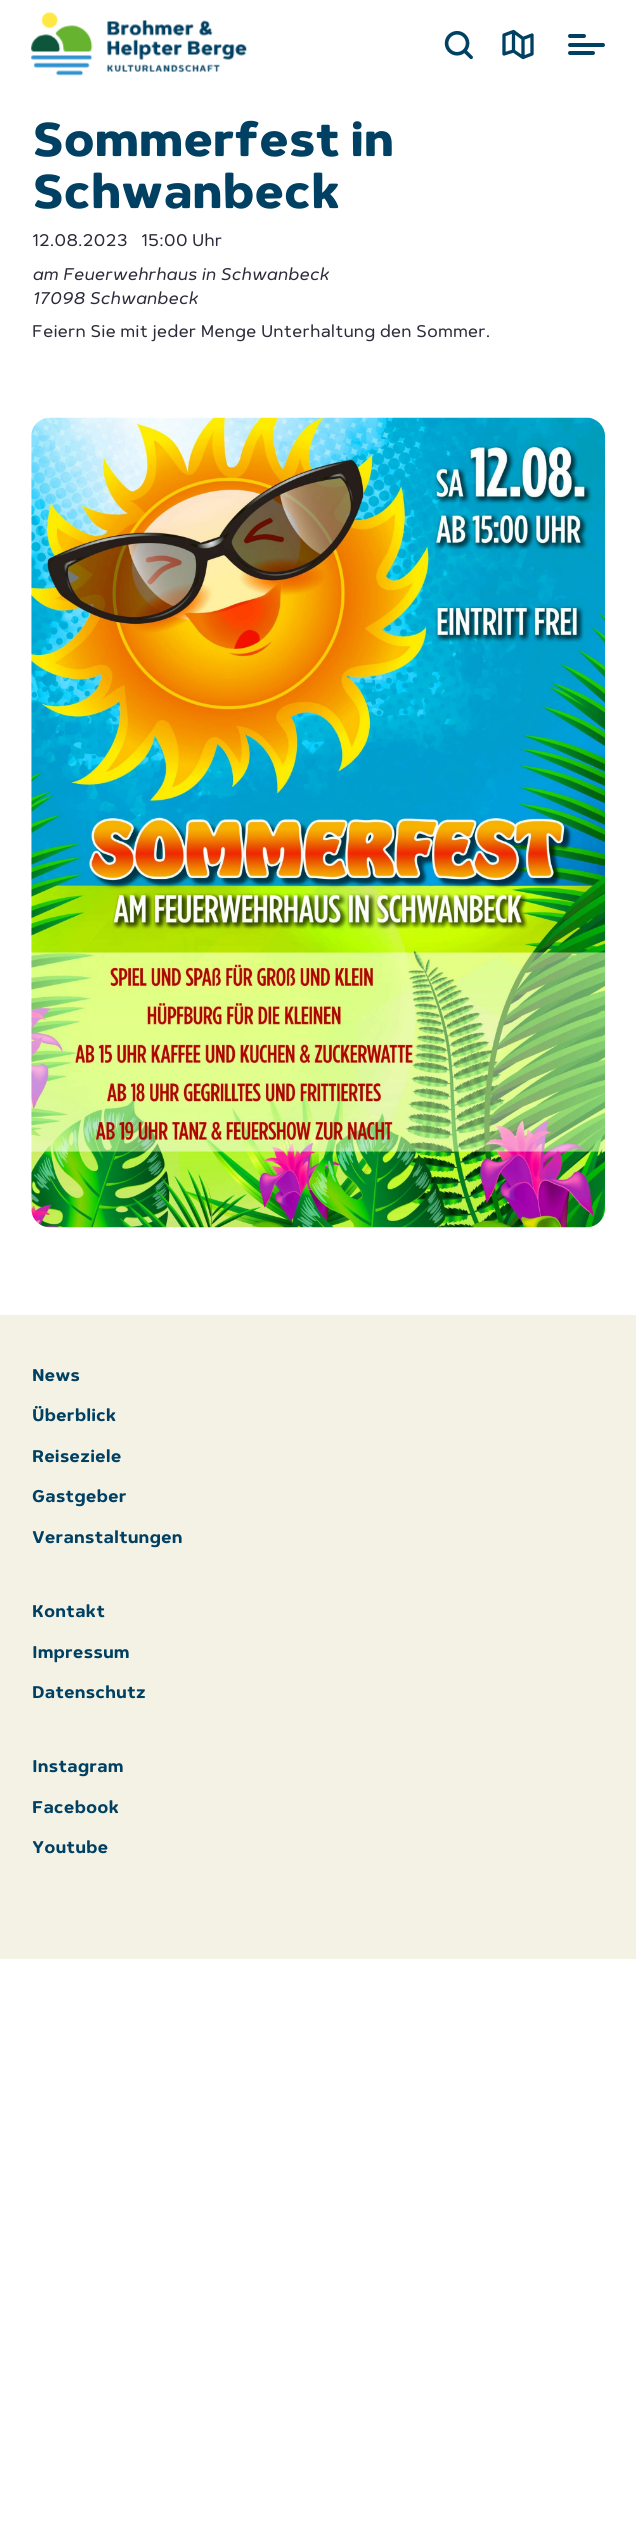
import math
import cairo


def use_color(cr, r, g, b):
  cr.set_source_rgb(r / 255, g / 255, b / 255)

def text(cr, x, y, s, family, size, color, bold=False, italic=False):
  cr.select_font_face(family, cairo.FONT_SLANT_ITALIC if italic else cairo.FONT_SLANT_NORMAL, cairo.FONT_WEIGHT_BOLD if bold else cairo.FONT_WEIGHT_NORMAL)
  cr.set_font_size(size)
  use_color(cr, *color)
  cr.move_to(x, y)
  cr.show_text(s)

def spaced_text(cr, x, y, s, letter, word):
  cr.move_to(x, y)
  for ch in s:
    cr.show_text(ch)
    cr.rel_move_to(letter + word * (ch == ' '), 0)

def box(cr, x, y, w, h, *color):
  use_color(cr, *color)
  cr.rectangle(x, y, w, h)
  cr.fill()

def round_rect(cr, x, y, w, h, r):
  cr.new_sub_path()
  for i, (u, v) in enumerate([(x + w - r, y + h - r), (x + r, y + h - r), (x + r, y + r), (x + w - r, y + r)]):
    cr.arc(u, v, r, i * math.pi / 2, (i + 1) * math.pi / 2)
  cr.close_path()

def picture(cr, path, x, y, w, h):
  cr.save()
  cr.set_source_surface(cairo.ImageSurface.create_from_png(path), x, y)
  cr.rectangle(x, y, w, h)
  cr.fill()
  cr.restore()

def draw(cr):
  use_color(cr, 255, 255, 255)
  cr.paint()
  picture(cr, "img_01.png", 31, 12, 216, 64)
  picture(cr, "img_02.png", 444, 31, 29, 29)
  cr.new_path()
  cr.move_to(523, 57.5)
  cr.line_to(513.5, 51)
  cr.line_to(513.5, 31.5)
  cr.line_to(523, 38.5)
  cr.close_path()
  cr.move_to(513.5, 51)
  cr.line_to(504, 54)
  cr.line_to(504, 35)
  cr.line_to(513.5, 31.5)
  cr.close_path()
  cr.move_to(532, 54)
  cr.line_to(523, 57.5)
  cr.line_to(523, 38.5)
  cr.line_to(532, 35)
  cr.close_path()
  use_color(cr, 0, 64, 98)
  cr.set_line_width(3.3)
  cr.set_line_cap(cairo.LINE_CAP_ROUND)
  cr.set_line_join(cairo.LINE_JOIN_ROUND)
  cr.stroke()
  round_rect(cr, 568, 34, 18, 4, 2)
  cr.fill()
  round_rect(cr, 568, 43, 37, 4, 2)
  cr.fill()
  round_rect(cr, 568, 51, 27, 4, 2)
  cr.fill()
  picture(cr, "img_03.png", 31, 417, 574, 811)
  box(cr, 0, 1315, 636, 644, 244, 242, 229)
  cr.select_font_face("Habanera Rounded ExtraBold")
  cr.set_font_size(47)
  use_color(cr, 0, 64, 98)
  spaced_text(cr, 32, 156, "Sommerfest in", -0.5, 0)
  spaced_text(cr, 32, 208, "Schwanbeck", -0.5, 0)
  text(cr, 32, 246, "12.08.2023", "HabaneraRounded", 16.9, (45, 43, 58))
  text(cr, 141, 246, "15:00 Uhr", "HabaneraRounded", 16.9, (45, 43, 58))
  text(cr, 32, 280, "am Feuerwehrhaus in Schwanbeck", "HabaneraRounded", 16.9, (45, 43, 58), italic=True)
  text(cr, 32, 304, "17098 Schwanbeck", "HabaneraRounded", 16.9, (45, 43, 58), italic=True)
  text(cr, 32, 337, "Feiern Sie mit jeder Menge Unterhaltung den Sommer.", "HabaneraRounded", 16.9, (45, 43, 58))
  text(cr, 32, 1381, "News", "HabaneraRounded", 16.9, (0, 64, 98), bold=True)
  text(cr, 32, 1421, "Überblick", "HabaneraRounded", 16.9, (0, 64, 98), bold=True)
  text(cr, 32, 1462, "Reiseziele", "HabaneraRounded", 16.9, (0, 64, 98), bold=True)
  text(cr, 32, 1502, "Gastgeber", "HabaneraRounded", 16.9, (0, 64, 98), bold=True)
  text(cr, 32, 1543, "Veranstaltungen", "HabaneraRounded", 16.9, (0, 64, 98), bold=True)
  text(cr, 32, 1617, "Kontakt", "HabaneraRounded", 16.9, (0, 64, 98), bold=True)
  text(cr, 32, 1658, "Impressum", "HabaneraRounded", 16.9, (0, 64, 98), bold=True)
  text(cr, 32, 1698, "Datenschutz", "HabaneraRounded", 16.9, (0, 64, 98), bold=True)
  text(cr, 32, 1772, "Instagram", "HabaneraRounded", 16.9, (0, 64, 98), bold=True)
  text(cr, 32, 1813, "Facebook", "HabaneraRounded", 16.9, (0, 64, 98), bold=True)
  text(cr, 32, 1853, "Youtube", "HabaneraRounded", 16.9, (0, 64, 98), bold=True)


surface = cairo.ImageSurface(cairo.FORMAT_RGB24, 636, 2527)
cr = cairo.Context(surface)
options = cairo.FontOptions()
options.set_hint_metrics(cairo.HINT_METRICS_OFF)
options.set_hint_style(cairo.HINT_STYLE_NONE)
cr.set_font_options(options)
cr.set_miter_limit(4)
draw(cr)
surface.write_to_png("out.png")
